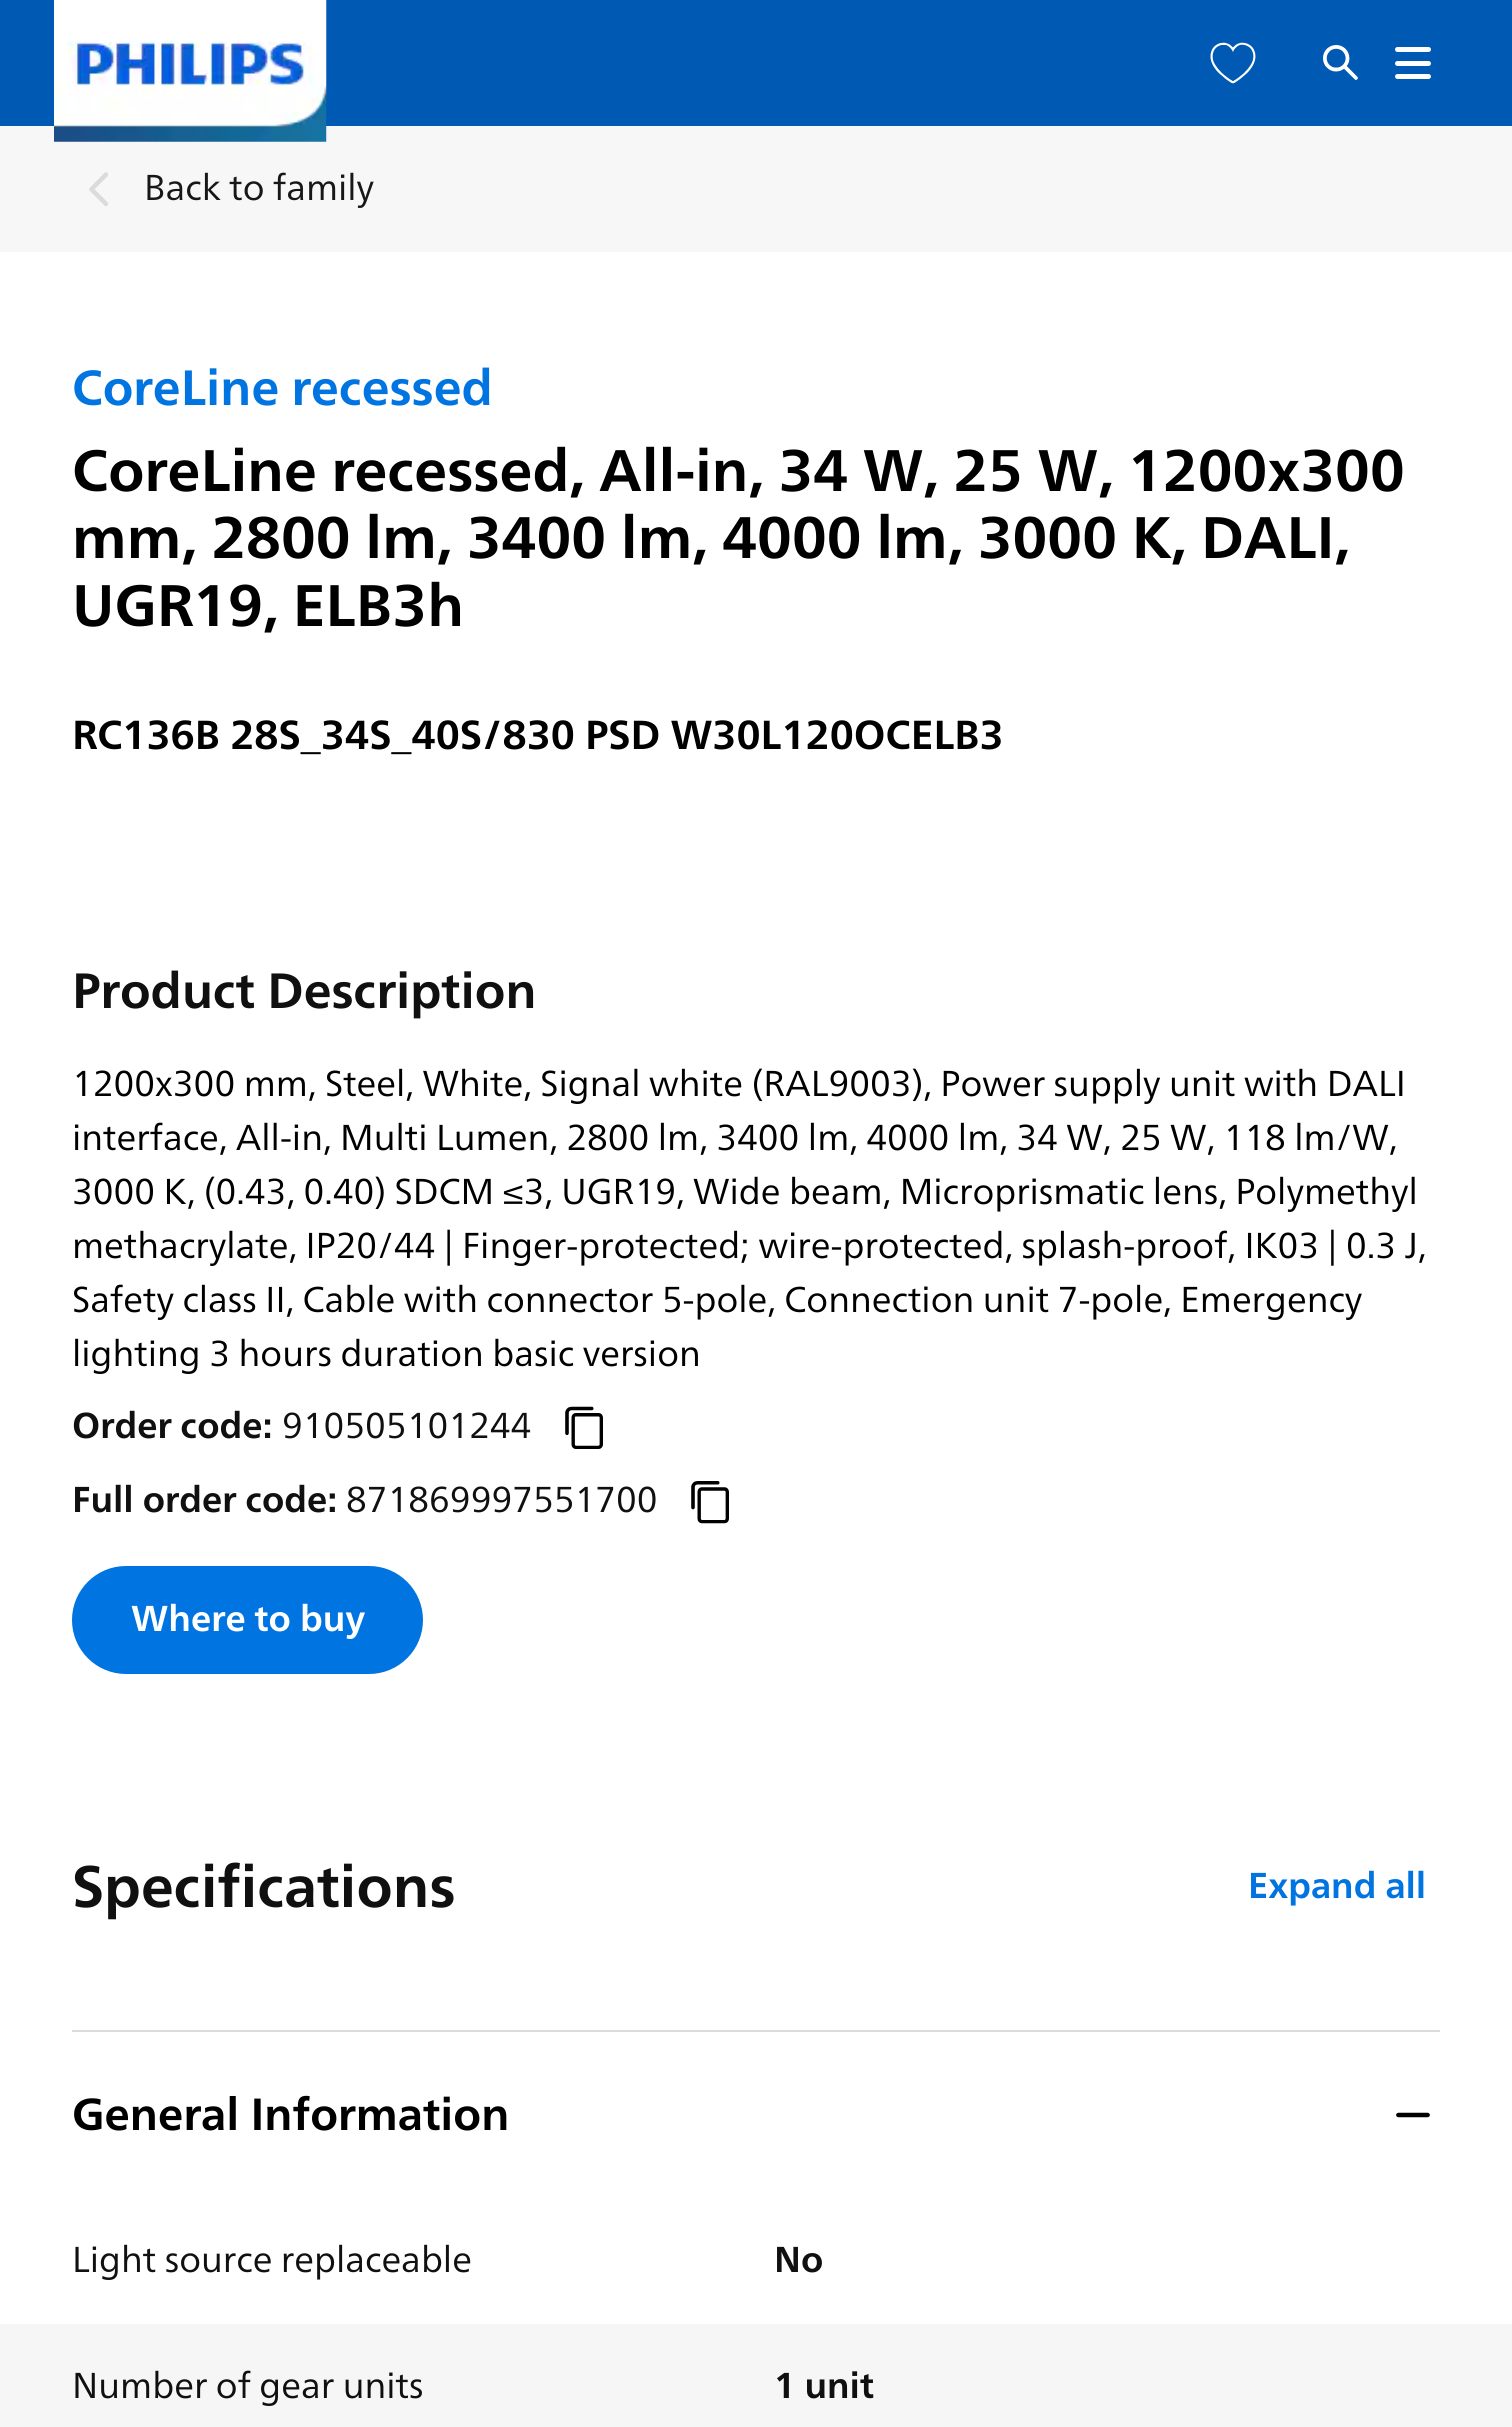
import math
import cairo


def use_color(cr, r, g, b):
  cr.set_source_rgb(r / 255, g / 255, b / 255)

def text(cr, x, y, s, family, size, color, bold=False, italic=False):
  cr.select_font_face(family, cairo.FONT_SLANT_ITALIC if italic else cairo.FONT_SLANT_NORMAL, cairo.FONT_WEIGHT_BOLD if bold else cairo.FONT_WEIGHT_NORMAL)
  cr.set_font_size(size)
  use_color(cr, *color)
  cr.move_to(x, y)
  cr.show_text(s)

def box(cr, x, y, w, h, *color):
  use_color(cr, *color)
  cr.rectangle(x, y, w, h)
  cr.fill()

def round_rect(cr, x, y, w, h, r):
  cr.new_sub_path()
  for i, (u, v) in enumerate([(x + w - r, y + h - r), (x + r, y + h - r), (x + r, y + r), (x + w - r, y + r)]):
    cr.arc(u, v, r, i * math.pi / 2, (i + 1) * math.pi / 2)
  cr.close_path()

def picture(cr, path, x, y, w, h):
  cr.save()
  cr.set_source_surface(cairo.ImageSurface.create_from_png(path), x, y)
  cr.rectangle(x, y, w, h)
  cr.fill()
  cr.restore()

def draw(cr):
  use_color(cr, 255, 255, 255)
  cr.paint()
  box(cr, 0, 0, 1512, 126, 0, 89, 179)
  box(cr, 0, 126, 1512, 126, 247, 247, 247)
  picture(cr, "img_01.png", 54, 0, 273, 142)
  picture(cr, "img_02.png", 1210, 42, 46, 42)
  picture(cr, "img_03.png", 1323, 45, 35, 35)
  use_color(cr, 255, 255, 255)
  round_rect(cr, 1395, 47, 36, 5, 2.5)
  cr.fill()
  round_rect(cr, 1395, 61, 36, 5, 2.5)
  cr.fill()
  round_rect(cr, 1395, 74, 36, 5, 2.5)
  cr.fill()
  picture(cr, "img_04.png", 89, 172, 19, 34)
  picture(cr, "img_05.png", 565, 1406, 38, 43)
  picture(cr, "img_06.png", 691, 1481, 38, 43)
  use_color(cr, 0, 116, 224)
  round_rect(cr, 74.5, 1568.5, 346, 103, 51.5)
  cr.fill_preserve()
  cr.set_line_width(5)
  cr.stroke()
  box(cr, 72, 2030, 1368, 2, 219, 219, 219)
  picture(cr, "img_07.png", 1396, 2112, 34, 6)
  box(cr, 0, 2324, 1512, 103, 246, 246, 246)
  text(cr, 144, 200, "Back to family", "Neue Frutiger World", 36, (23, 23, 23))
  text(cr, 72, 405, "CoreLine recessed", "Neue Frutiger World", 49.5, (0, 116, 224), bold=True)
  text(cr, 72, 491, "CoreLine recessed, All-in, 34 W, 25 W, 1200x300", "Neue Frutiger World", 58.5, (0, 0, 0), bold=True)
  text(cr, 72, 558, "mm, 2800 lm, 3400 lm, 4000 lm, 3000 K, DALI,", "Neue Frutiger World", 58.5, (0, 0, 0), bold=True)
  text(cr, 72, 626, "UGR19, ELB3h", "Neue Frutiger World", 58.5, (0, 0, 0), bold=True)
  text(cr, 72, 749, "RC136B 28S_34S_40S/830 PSD W30L120OCELB3", "Neue Frutiger World", 40.5, (0, 0, 0), bold=True)
  text(cr, 72, 1008, "Product Description", "Neue Frutiger World", 49.5, (16, 16, 16), bold=True)
  text(cr, 72, 1096, "1200x300 mm, Steel, White, Signal white (RAL9003), Power supply unit with DALI", "Neue Frutiger World", 36, (0, 0, 0))
  text(cr, 72, 1150, "interface, All-in, Multi Lumen, 2800 lm, 3400 lm, 4000 lm, 34 W, 25 W, 118 lm/W,", "Neue Frutiger World", 36, (0, 0, 0))
  text(cr, 72, 1204, "3000 K, (0.43, 0.40) SDCM ≤3, UGR19, Wide beam, Microprismatic lens, Polymethyl", "Neue Frutiger World", 36, (0, 0, 0))
  text(cr, 72, 1258, "methacrylate, IP20/44 | Finger-protected; wire-protected, splash-proof, IK03 | 0.3 J,", "Neue Frutiger World", 36, (0, 0, 0))
  text(cr, 72, 1312, "Safety class II, Cable with connector 5-pole, Connection unit 7-pole, Emergency", "Neue Frutiger World", 36, (0, 0, 0))
  text(cr, 72, 1366, "lighting 3 hours duration basic version", "Neue Frutiger World", 36, (0, 0, 0))
  text(cr, 72, 1438, "Order code:", "Neue Frutiger World", 36, (16, 16, 16), bold=True)
  text(cr, 282, 1438, "910505101244", "Neue Frutiger World", 36, (16, 16, 16))
  text(cr, 72, 1512, "Full order code:", "Neue Frutiger World", 36, (16, 16, 16), bold=True)
  text(cr, 346, 1512, "871869997551700", "Neue Frutiger World", 36, (16, 16, 16))
  text(cr, 131, 1631, "Where to buy", "Neue Frutiger World", 36, (255, 255, 255), bold=True)
  text(cr, 72, 1907, "Specifications", "Neue Frutiger World", 58.5, (16, 16, 16), bold=True)
  text(cr, 1248, 1898, "Expand all", "Neue Frutiger World", 36, (0, 116, 224), bold=True)
  text(cr, 72, 2130, "General Information", "Neue Frutiger World", 45, (0, 0, 0), bold=True)
  text(cr, 72, 2272, "Light source replaceable", "Neue Frutiger World", 36, (16, 16, 16))
  text(cr, 774, 2272, "No", "Neue Frutiger World", 36, (16, 16, 16), bold=True)
  text(cr, 72, 2398, "Number of gear units", "Neue Frutiger World", 36, (16, 16, 16))
  text(cr, 774, 2398, "1 unit", "Neue Frutiger World", 36, (16, 16, 16), bold=True)


surface = cairo.ImageSurface(cairo.FORMAT_RGB24, 1512, 2427)
cr = cairo.Context(surface)
options = cairo.FontOptions()
options.set_hint_metrics(cairo.HINT_METRICS_OFF)
options.set_hint_style(cairo.HINT_STYLE_NONE)
cr.set_font_options(options)
cr.set_miter_limit(4)
draw(cr)
surface.write_to_png("out.png")
